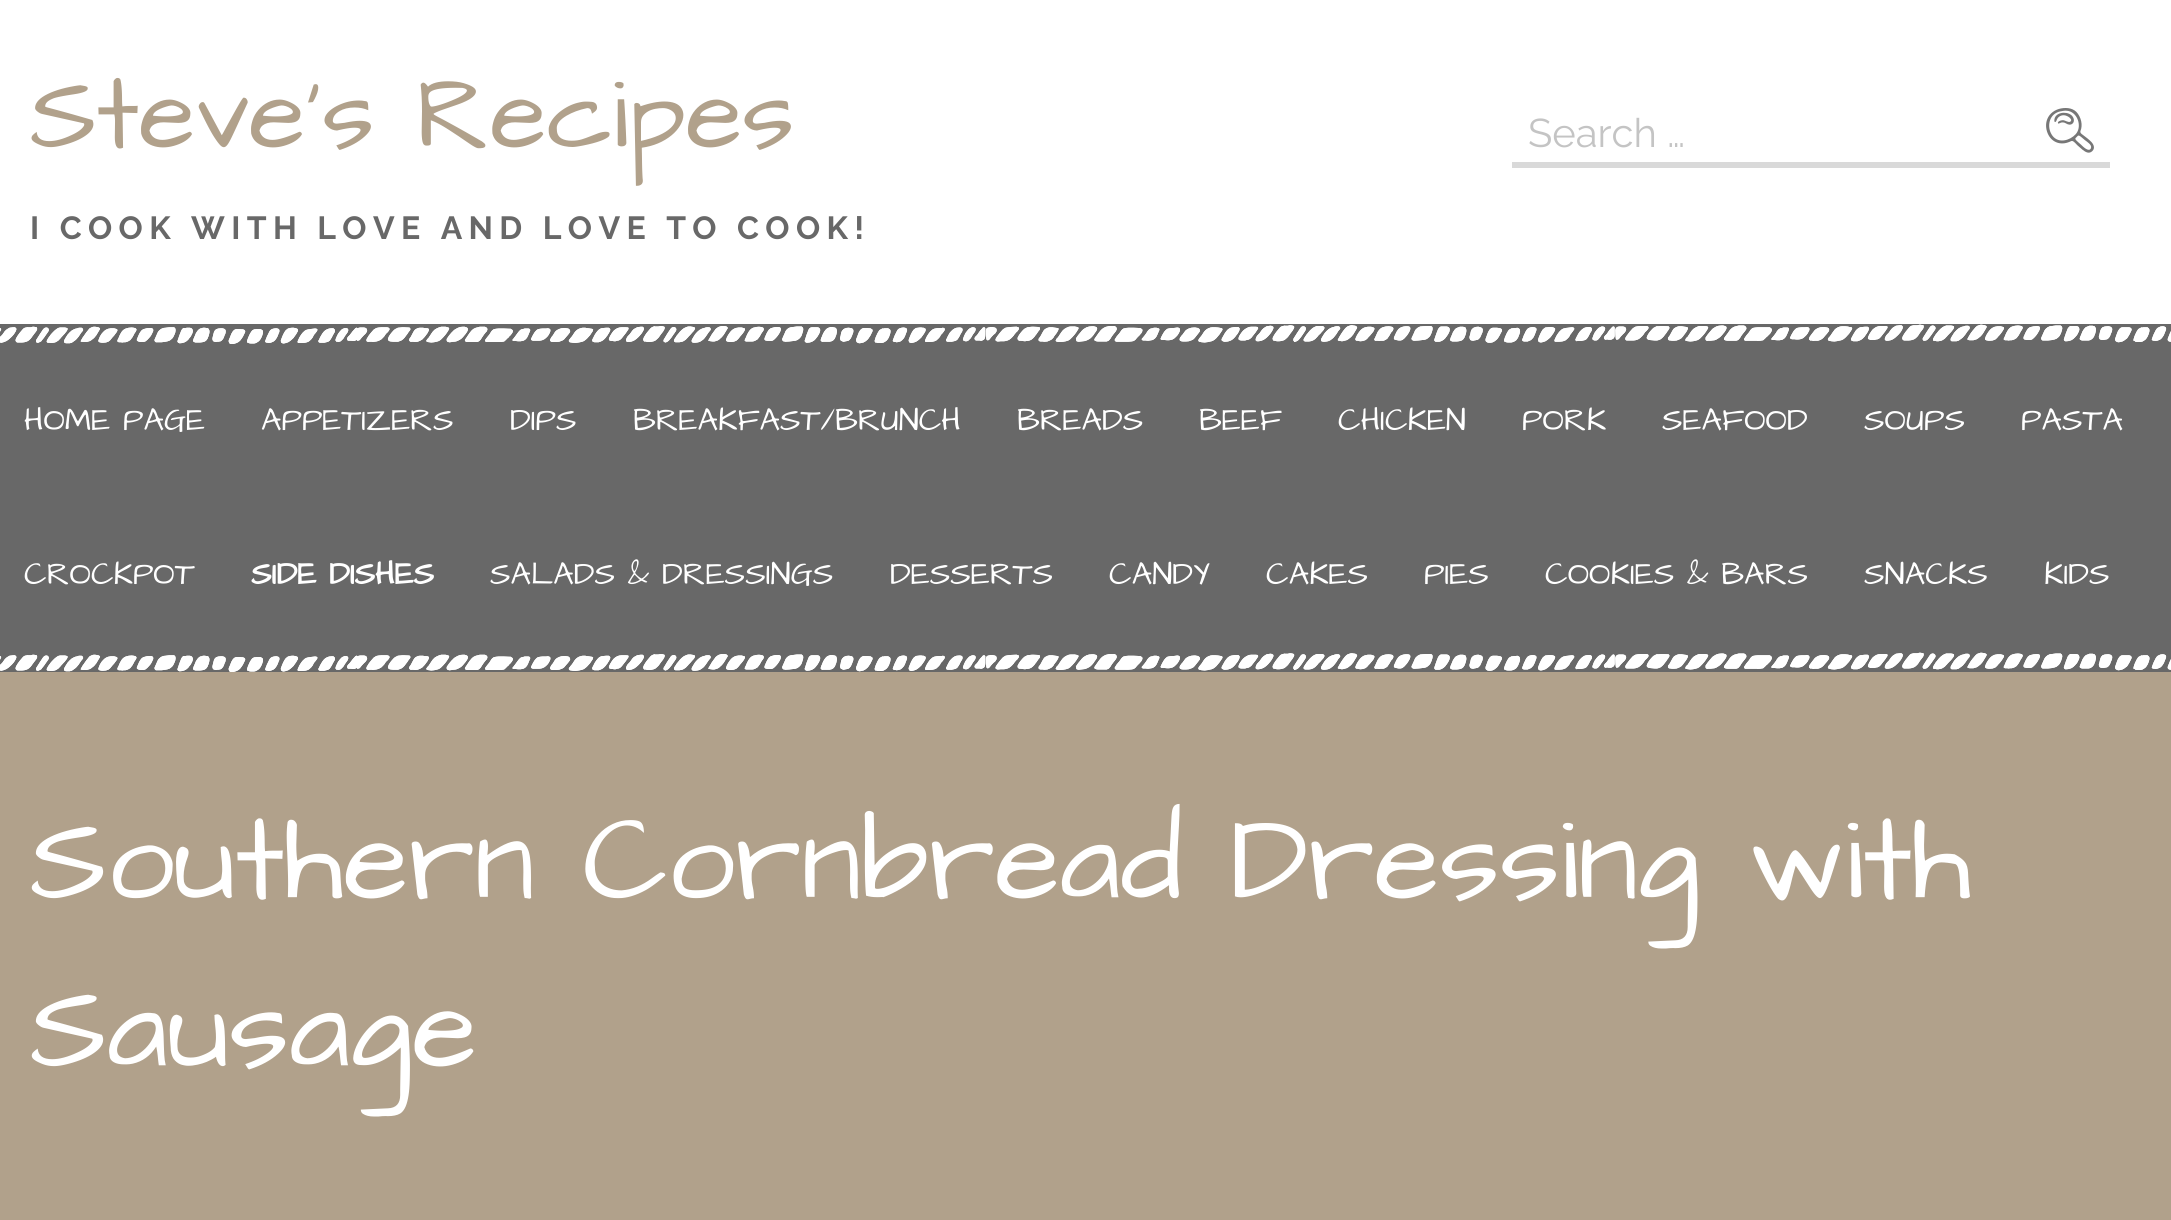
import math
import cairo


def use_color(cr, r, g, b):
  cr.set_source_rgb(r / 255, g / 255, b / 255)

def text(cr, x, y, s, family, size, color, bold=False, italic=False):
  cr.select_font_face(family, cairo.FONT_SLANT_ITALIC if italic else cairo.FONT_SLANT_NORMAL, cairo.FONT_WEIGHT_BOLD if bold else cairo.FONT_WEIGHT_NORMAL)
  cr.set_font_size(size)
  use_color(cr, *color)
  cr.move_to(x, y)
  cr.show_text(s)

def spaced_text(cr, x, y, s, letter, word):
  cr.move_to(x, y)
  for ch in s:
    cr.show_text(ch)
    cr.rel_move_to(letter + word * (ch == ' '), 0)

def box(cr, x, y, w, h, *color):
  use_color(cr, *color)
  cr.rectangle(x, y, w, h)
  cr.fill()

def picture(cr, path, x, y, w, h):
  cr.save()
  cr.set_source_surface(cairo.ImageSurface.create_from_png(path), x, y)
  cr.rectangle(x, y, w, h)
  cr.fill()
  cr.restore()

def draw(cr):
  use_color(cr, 255, 255, 255)
  cr.paint()
  box(cr, 1512, 162, 598, 6, 217, 217, 217)
  picture(cr, "img_01.png", 2046, 108, 48, 45)
  box(cr, 0, 324, 2171, 348, 104, 104, 104)
  picture(cr, "img_02.png", 0, 324, 2171, 20)
  picture(cr, "img_02.png", 0, 652, 2171, 20)
  box(cr, 0, 672, 2171, 548, 177, 161, 139)
  text(cr, 30, 147, "Steve's Recipes", "Architects Daughter", 104, (177, 161, 139))
  cr.select_font_face("Raleway", cairo.FONT_SLANT_NORMAL, cairo.FONT_WEIGHT_BOLD)
  cr.set_font_size(32)
  use_color(cr, 104, 104, 104)
  spaced_text(cr, 30, 239, "I COOK WITH LOVE AND LOVE TO COOK!", 6.4, 0)
  text(cr, 1528, 147, "Search …", "Raleway", 40, (196, 196, 196))
  text(cr, 24, 430, "HOME PAGE", "Architects Daughter", 32, (255, 255, 255))
  text(cr, 261, 430, "APPETIZERS", "Architects Daughter", 32, (255, 255, 255))
  text(cr, 510, 430, "DIPS", "Architects Daughter", 32, (255, 255, 255))
  text(cr, 633, 430, "BREAKFAST/BRUNCH", "Architects Daughter", 32, (255, 255, 255))
  text(cr, 1017, 430, "BREADS", "Architects Daughter", 32, (255, 255, 255))
  text(cr, 1199, 430, "BEEF", "Architects Daughter", 32, (255, 255, 255))
  text(cr, 1338, 430, "CHICKEN", "Architects Daughter", 32, (255, 255, 255))
  text(cr, 1522, 430, "PORK", "Architects Daughter", 32, (255, 255, 255))
  text(cr, 1662, 430, "SEAFOOD", "Architects Daughter", 32, (255, 255, 255))
  text(cr, 1864, 430, "SOUPS", "Architects Daughter", 32, (255, 255, 255))
  text(cr, 2021, 430, "PASTA", "Architects Daughter", 32, (255, 255, 255))
  text(cr, 24, 584, "CROCKPOT", "Architects Daughter", 32, (255, 255, 255))
  text(cr, 251, 584, "SIDE DISHES", "Architects Daughter", 32, (255, 255, 255), bold=True)
  text(cr, 490, 584, "SALADS & DRESSINGS", "Architects Daughter", 32, (255, 255, 255))
  text(cr, 890, 584, "DESSERTS", "Architects Daughter", 32, (255, 255, 255))
  text(cr, 1109, 584, "CANDY", "Architects Daughter", 32, (255, 255, 255))
  text(cr, 1266, 584, "CAKES", "Architects Daughter", 32, (255, 255, 255))
  text(cr, 1424, 584, "PIES", "Architects Daughter", 32, (255, 255, 255))
  text(cr, 1545, 584, "COOKIES & BARS", "Architects Daughter", 32, (255, 255, 255))
  text(cr, 1864, 584, "SNACKS", "Architects Daughter", 32, (255, 255, 255))
  text(cr, 2044, 584, "KIDS", "Architects Daughter", 32, (255, 255, 255))
  text(cr, 30, 898, "Southern Cornbread Dressing with", "Architects Daughter", 120, (255, 255, 255))
  text(cr, 30, 1066, "Sausage", "Architects Daughter", 120, (255, 255, 255))


surface = cairo.ImageSurface(cairo.FORMAT_RGB24, 2171, 1220)
cr = cairo.Context(surface)
options = cairo.FontOptions()
options.set_hint_metrics(cairo.HINT_METRICS_OFF)
options.set_hint_style(cairo.HINT_STYLE_NONE)
cr.set_font_options(options)
cr.set_miter_limit(4)
draw(cr)
surface.write_to_png("out.png")
